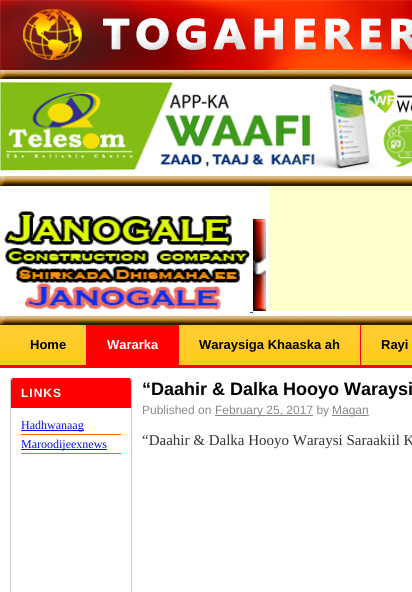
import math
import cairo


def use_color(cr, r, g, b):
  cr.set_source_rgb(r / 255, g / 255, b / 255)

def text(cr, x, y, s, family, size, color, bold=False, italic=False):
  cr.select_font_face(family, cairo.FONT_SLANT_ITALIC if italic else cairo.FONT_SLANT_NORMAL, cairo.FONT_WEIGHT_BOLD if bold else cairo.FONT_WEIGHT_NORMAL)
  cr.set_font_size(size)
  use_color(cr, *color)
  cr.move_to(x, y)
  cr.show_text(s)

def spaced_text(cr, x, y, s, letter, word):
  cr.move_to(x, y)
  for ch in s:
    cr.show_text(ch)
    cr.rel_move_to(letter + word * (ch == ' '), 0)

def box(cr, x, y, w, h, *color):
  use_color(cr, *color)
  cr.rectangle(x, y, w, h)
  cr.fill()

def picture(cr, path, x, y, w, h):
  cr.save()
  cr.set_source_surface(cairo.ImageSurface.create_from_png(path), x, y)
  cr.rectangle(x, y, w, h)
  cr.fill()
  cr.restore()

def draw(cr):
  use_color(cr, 255, 255, 255)
  cr.paint()
  picture(cr, "img_01.png", 0, 0, 412, 70)
  picture(cr, "img_02.png", 0, 70, 412, 9)
  picture(cr, "img_03.png", 0, 82, 412, 89)
  picture(cr, "img_04.png", 0, 176, 412, 10)
  picture(cr, "img_05.png", 4, 211, 246, 99)
  picture(cr, "img_06.png", 253, 219, 13, 92)
  box(cr, 269, 186, 143, 125, 255, 255, 204)
  box(cr, 250, 312, 3, 1, 0, 102, 204)
  picture(cr, "img_02.png", 0, 316, 412, 9)
  picture(cr, "img_07.png", 0, 325, 412, 40)
  box(cr, 0, 365, 412, 3, 255, 0, 0)
  box(cr, 86, 325, 93, 40, 255, 0, 0)
  box(cr, 360, 325, 1, 40, 255, 0, 0)
  cr.rectangle(10.5, 378.5, 121, 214)
  use_color(cr, 204, 204, 204)
  cr.set_line_width(1)
  cr.stroke()
  use_color(cr, 255, 0, 0)
  cr.new_path()
  cr.move_to(14, 378)
  cr.line_to(128, 378)
  cr.curve_to(129.5, 378, 131, 379.5, 131, 381)
  cr.line_to(131, 408)
  cr.line_to(11, 408)
  cr.line_to(11, 381)
  cr.curve_to(11, 379.5, 12.5, 378, 14, 378)
  cr.close_path()
  cr.fill()
  box(cr, 13, 378, 117, 1, 255, 0, 0)
  box(cr, 21, 434, 100, 1, 250, 103, 6)
  box(cr, 21, 430, 63, 1, 5, 16, 235)
  box(cr, 21, 453, 100, 1, 250, 103, 6)
  box(cr, 21, 449, 86, 1, 5, 16, 235)
  box(cr, 215, 415, 98, 1, 136, 136, 136)
  box(cr, 332, 415, 37, 1, 136, 136, 136)
  text(cr, 30, 349, "Home", "Liberation Sans", 13, (0, 0, 0), bold=True)
  text(cr, 107, 349, "Wararka", "Liberation Sans", 13, (255, 255, 255), bold=True)
  text(cr, 199, 349, "Waraysiga Khaaska ah", "Liberation Sans", 13, (0, 0, 0), bold=True)
  text(cr, 381, 349, "Rayi", "Liberation Sans", 13, (0, 0, 0), bold=True)
  cr.set_font_size(12)
  use_color(cr, 255, 255, 255)
  spaced_text(cr, 21, 397, "LINKS", 1, 0)
  text(cr, 21, 429, "Hadhwanaag", "Liberation Serif", 12, (5, 16, 235))
  text(cr, 21, 448, "Maroodijeexnews", "Liberation Serif", 12, (5, 16, 235))
  text(cr, 142, 395, "“Daahir & Dalka Hooyo Waraysi", "Liberation Sans", 18, (0, 0, 0), bold=True)
  text(cr, 142, 414, "Published on", "Liberation Sans", 12, (136, 136, 136))
  text(cr, 215, 414, "February 25, 2017 by", "Liberation Sans", 12, (136, 136, 136))
  text(cr, 332, 414, "Magan", "Liberation Sans", 12, (136, 136, 136))
  text(cr, 142, 445, "“Daahir & Dalka Hooyo Waraysi Saraakiil K", "Liberation Serif", 15, (51, 51, 51))


surface = cairo.ImageSurface(cairo.FORMAT_RGB24, 412, 592)
cr = cairo.Context(surface)
options = cairo.FontOptions()
options.set_hint_metrics(cairo.HINT_METRICS_OFF)
options.set_hint_style(cairo.HINT_STYLE_NONE)
cr.set_font_options(options)
cr.set_miter_limit(4)
draw(cr)
surface.write_to_png("out.png")
